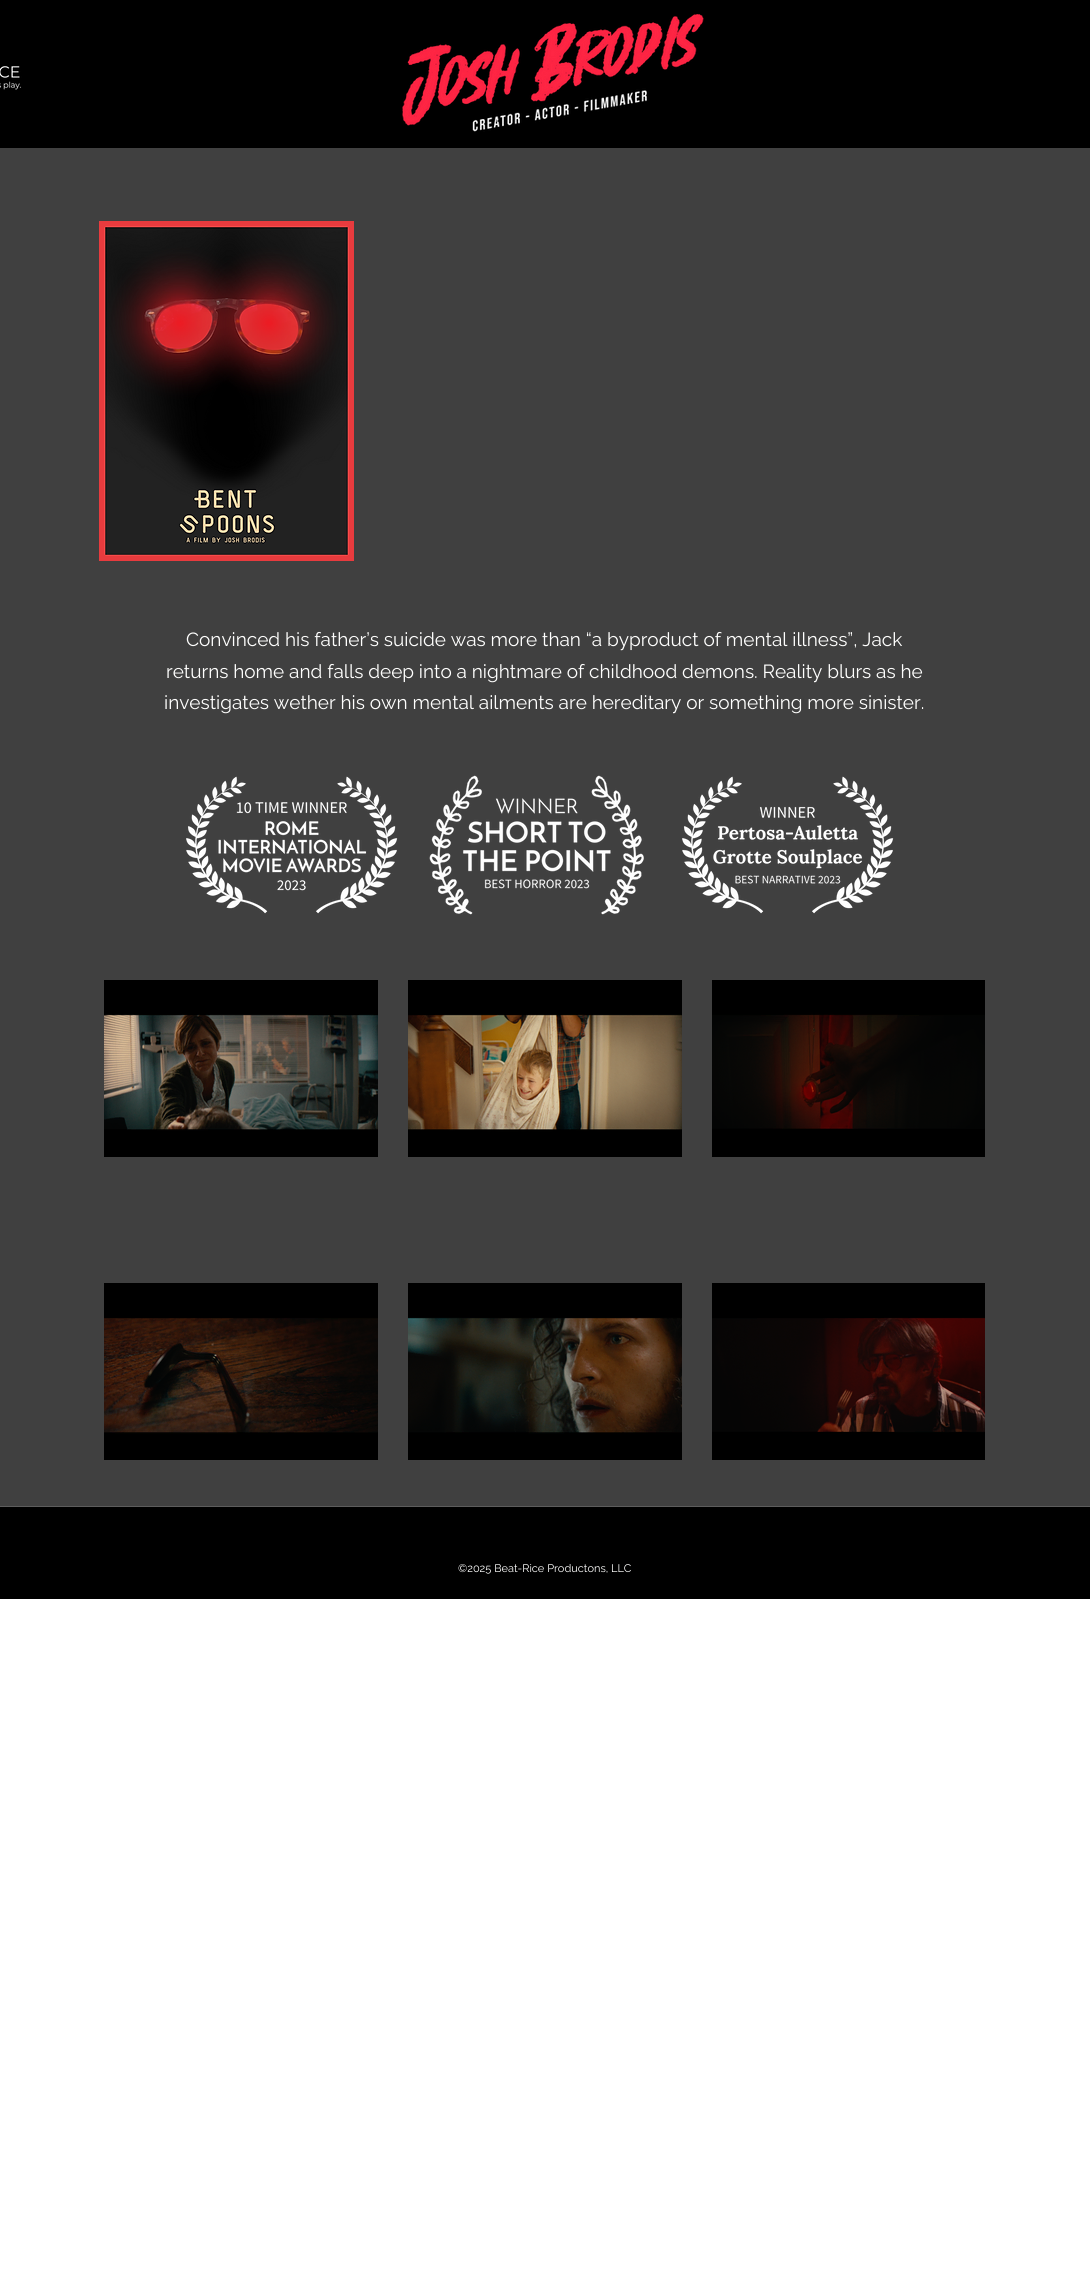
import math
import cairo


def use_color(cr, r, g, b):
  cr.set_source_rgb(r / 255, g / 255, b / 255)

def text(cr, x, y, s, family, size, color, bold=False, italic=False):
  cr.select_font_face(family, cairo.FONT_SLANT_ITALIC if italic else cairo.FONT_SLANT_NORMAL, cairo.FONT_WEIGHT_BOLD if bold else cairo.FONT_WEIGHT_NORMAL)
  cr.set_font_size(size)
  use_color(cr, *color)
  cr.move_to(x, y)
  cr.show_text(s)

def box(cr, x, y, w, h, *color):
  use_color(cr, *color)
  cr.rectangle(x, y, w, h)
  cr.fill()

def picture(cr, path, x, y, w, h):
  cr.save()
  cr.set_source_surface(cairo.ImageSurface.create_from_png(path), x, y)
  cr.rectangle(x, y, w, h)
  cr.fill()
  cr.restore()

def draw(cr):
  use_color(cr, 255, 255, 255)
  cr.paint()
  box(cr, 0, 0, 1090, 148, 0, 0, 0)
  picture(cr, "img_01.png", 0, 66, 22, 24)
  picture(cr, "img_02.png", 402, 14, 302, 118)
  box(cr, 0, 148, 1090, 1358, 64, 64, 64)
  picture(cr, "img_03.png", 99, 221, 255, 340)
  picture(cr, "img_04.png", 186, 776, 212, 138)
  picture(cr, "img_05.png", 429, 775, 215, 140)
  picture(cr, "img_06.png", 682, 776, 212, 138)
  picture(cr, "img_07.png", 104, 980, 274, 177)
  picture(cr, "img_08.png", 408, 980, 274, 177)
  picture(cr, "img_09.png", 712, 980, 273, 177)
  picture(cr, "img_10.png", 104, 1283, 274, 177)
  picture(cr, "img_11.png", 408, 1283, 274, 177)
  picture(cr, "img_12.png", 712, 1283, 273, 177)
  box(cr, 0, 1506, 1090, 1, 93, 93, 93)
  box(cr, 0, 1507, 1090, 92, 0, 0, 0)
  text(cr, 186, 646, "Convinced his father’s suicide was more than “a byproduct of mental illness”, Jack", "Raleway", 19, (255, 255, 254))
  text(cr, 166, 678, "returns home and falls deep into a nightmare of childhood demons. Reality blurs as he", "Raleway", 19, (255, 255, 254))
  text(cr, 164, 709, "investigates wether his own mental ailments are hereditary or something more sinister.", "Raleway", 19, (255, 255, 254))
  text(cr, 458, 1572, "©2025 Beat-Rice Productons, LLC", "Raleway", 11, (255, 255, 254))


surface = cairo.ImageSurface(cairo.FORMAT_RGB24, 1090, 2291)
cr = cairo.Context(surface)
options = cairo.FontOptions()
options.set_hint_metrics(cairo.HINT_METRICS_OFF)
options.set_hint_style(cairo.HINT_STYLE_NONE)
cr.set_font_options(options)
cr.set_miter_limit(4)
draw(cr)
surface.write_to_png("out.png")
